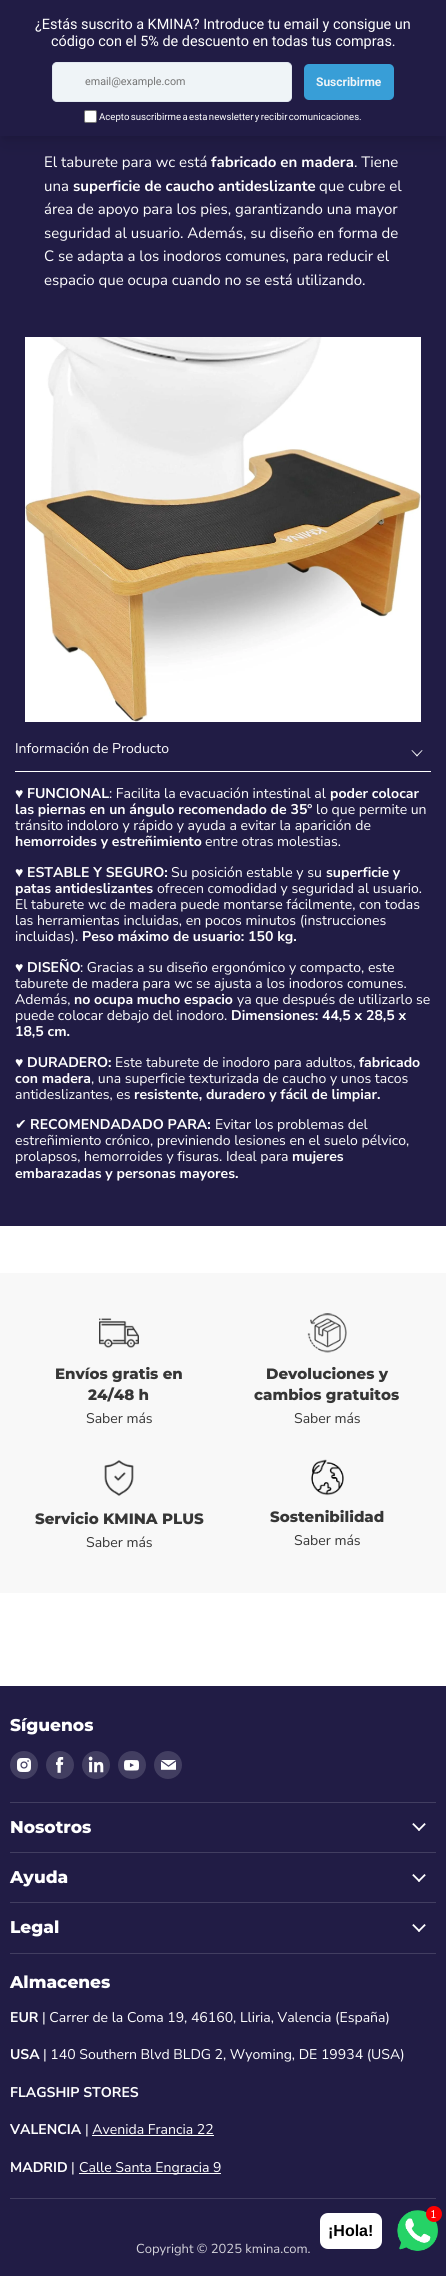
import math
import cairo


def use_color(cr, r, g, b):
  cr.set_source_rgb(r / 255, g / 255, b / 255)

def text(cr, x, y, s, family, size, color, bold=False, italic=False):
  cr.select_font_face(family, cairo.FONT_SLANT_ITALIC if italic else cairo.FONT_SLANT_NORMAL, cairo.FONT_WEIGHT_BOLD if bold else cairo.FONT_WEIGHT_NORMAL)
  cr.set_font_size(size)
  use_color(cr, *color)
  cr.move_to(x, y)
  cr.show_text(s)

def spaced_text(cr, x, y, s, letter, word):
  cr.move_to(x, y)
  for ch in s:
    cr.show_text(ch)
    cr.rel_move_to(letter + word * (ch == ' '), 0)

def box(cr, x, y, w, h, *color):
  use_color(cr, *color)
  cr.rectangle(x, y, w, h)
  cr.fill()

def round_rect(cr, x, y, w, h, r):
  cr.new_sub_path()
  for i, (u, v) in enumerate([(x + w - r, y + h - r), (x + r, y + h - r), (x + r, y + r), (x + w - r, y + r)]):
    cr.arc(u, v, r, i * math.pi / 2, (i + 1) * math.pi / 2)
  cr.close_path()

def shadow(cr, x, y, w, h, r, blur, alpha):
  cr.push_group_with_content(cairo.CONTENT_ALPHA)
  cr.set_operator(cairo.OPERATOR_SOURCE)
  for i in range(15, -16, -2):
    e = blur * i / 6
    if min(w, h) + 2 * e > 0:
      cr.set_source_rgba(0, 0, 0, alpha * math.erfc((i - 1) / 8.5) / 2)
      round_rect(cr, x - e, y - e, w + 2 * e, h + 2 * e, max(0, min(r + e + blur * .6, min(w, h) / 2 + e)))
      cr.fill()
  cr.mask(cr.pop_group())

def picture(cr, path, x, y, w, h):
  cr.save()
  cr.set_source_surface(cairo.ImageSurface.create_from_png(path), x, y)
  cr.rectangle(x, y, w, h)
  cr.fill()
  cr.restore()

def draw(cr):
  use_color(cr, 255, 255, 255)
  cr.paint()
  box(cr, 0, 136, 446, 1090, 33, 28, 69)
  use_color(cr, 0, 0, 0)
  shadow(cr, 2, 6, 442, 132, 0, 3, 0.05)
  shadow(cr, 3, 13, 440, 130, 0, 7.5, 0.1)
  box(cr, 0, 0, 446, 136, 33, 28, 69)
  use_color(cr, 239, 244, 247)
  round_rect(cr, 52.5, 62.5, 239, 39, 4.5)
  cr.fill_preserve()
  use_color(cr, 226, 232, 240)
  cr.set_line_width(1)
  cr.stroke()
  use_color(cr, 56, 158, 215)
  round_rect(cr, 304, 64, 90, 36, 5)
  cr.fill()
  use_color(cr, 255, 255, 255)
  round_rect(cr, 84.5, 110.5, 12, 12, 1.5)
  cr.fill_preserve()
  use_color(cr, 118, 118, 118)
  cr.stroke()
  picture(cr, "img_01.png", 25, 337, 396, 385)
  box(cr, 15, 771, 416, 1, 255, 255, 255)
  cr.new_path()
  cr.move_to(422, 750)
  cr.line_to(422.5, 750.5)
  cr.line_to(417, 756.5)
  cr.line_to(416.5, 755.5)
  cr.close_path()
  cr.fill()
  cr.new_path()
  cr.move_to(412, 750)
  cr.line_to(417.5, 755.5)
  cr.line_to(417, 756.5)
  cr.line_to(411.5, 750.5)
  cr.close_path()
  cr.fill()
  box(cr, 0, 1273, 446, 320, 248, 248, 248)
  picture(cr, "img_02.png", 99, 1318, 40, 30)
  picture(cr, "img_03.png", 307, 1313, 40, 40)
  picture(cr, "img_04.png", 104, 1460, 30, 36)
  picture(cr, "img_05.png", 311, 1459, 33, 37)
  box(cr, 0, 1686, 446, 590, 33, 28, 69)
  box(cr, 10, 1802, 426, 1, 66, 62, 97)
  cr.arc(24, 1765, 14, 0, 2 * math.pi)
  cr.fill()
  picture(cr, "img_06.png", 17, 1758, 14, 14)
  cr.arc(60, 1765, 14, 0, 2 * math.pi)
  cr.fill()
  picture(cr, "img_07.png", 56, 1757, 8, 16)
  cr.arc(96, 1765, 14, 0, 2 * math.pi)
  cr.fill()
  picture(cr, "img_08.png", 88, 1756, 16, 17)
  cr.arc(132, 1765, 14, 0, 2 * math.pi)
  cr.fill()
  picture(cr, "img_09.png", 124, 1760, 15, 11)
  cr.arc(168, 1765, 14, 0, 2 * math.pi)
  cr.fill()
  picture(cr, "img_10.png", 161, 1760, 15, 10)
  box(cr, 10, 1852, 426, 1, 66, 62, 97)
  picture(cr, "img_11.png", 412, 1823, 14, 8)
  box(cr, 10, 1902, 426, 1, 66, 62, 97)
  picture(cr, "img_11.png", 412, 1874, 14, 8)
  box(cr, 10, 1953, 426, 1, 66, 62, 97)
  picture(cr, "img_11.png", 412, 1924, 14, 8)
  box(cr, 10, 2198, 426, 1, 66, 62, 97)
  box(cr, 92, 2135, 122, 1, 255, 255, 255)
  box(cr, 79, 2173, 142, 1, 255, 255, 255)
  picture(cr, "img_12.png", 397, 2210, 41, 41)
  use_color(cr, 255, 0, 0)
  cr.arc(434, 2214, 8, 0, 2 * math.pi)
  cr.fill()
  use_color(cr, 255, 255, 255)
  round_rect(cr, 320, 2213, 62, 36, 8)
  cr.fill()
  text(cr, 35, 29, "¿Estás suscrito a KMINA? Introduce tu email y consigue un", "Roboto", 14.4, (255, 255, 255))
  text(cr, 51, 46, "código con el 5% de descuento en todas tus compras.", "Roboto", 14.4, (255, 255, 255))
  text(cr, 85, 85, "email@example.com", "Roboto", 10.75, (117, 117, 117))
  text(cr, 316, 86, "Suscribirme", "Roboto", 12, (239, 244, 247), bold=True)
  cr.select_font_face("Roboto")
  cr.set_font_size(9.6)
  use_color(cr, 255, 255, 255)
  spaced_text(cr, 99, 120, "Acepto suscribirme a esta newsletter y recibir comunicaciones.", 0, -1)
  text(cr, 44, 167, "El taburete para wc está", "Nunito Sans", 15, (255, 255, 255))
  text(cr, 211, 167, "fabricado en madera", "Nunito Sans", 15, (255, 255, 255), bold=True)
  text(cr, 354, 167, ". Tiene", "Nunito Sans", 15, (255, 255, 255))
  text(cr, 44, 191, "una", "Nunito Sans", 15, (255, 255, 255))
  text(cr, 73, 191, "superficie de caucho antideslizante", "Nunito Sans", 15, (255, 255, 255), bold=True)
  text(cr, 319, 191, "que cubre el", "Nunito Sans", 15, (255, 255, 255))
  text(cr, 44, 214, "área de apoyo para los pies, garantizando una mayor", "Nunito Sans", 15, (255, 255, 255))
  text(cr, 44, 238, "seguridad al usuario. Además, su diseño en forma de", "Nunito Sans", 15, (255, 255, 255))
  text(cr, 44, 261, "C se adapta a los inodoros comunes, para reducir el", "Nunito Sans", 15, (255, 255, 255))
  text(cr, 44, 285, "espacio que ocupa cuando no se está utilizando.", "Nunito Sans", 15, (255, 255, 255))
  text(cr, 15, 753, "Información de Producto", "Nunito Sans", 14.05, (255, 255, 255))
  text(cr, 15, 798, "♥", "Liberation Sans", 14.05, (255, 255, 255))
  text(cr, 27, 798, "FUNCIONAL", "Nunito Sans", 14.05, (255, 255, 255), bold=True)
  text(cr, 109, 798, ": Facilita la evacuación intestinal al", "Nunito Sans", 14.05, (255, 255, 255))
  text(cr, 330, 798, "poder colocar", "Nunito Sans", 14.05, (255, 255, 255), bold=True)
  text(cr, 15, 814, "las piernas en un ángulo recomendado de 35º", "Nunito Sans", 14.05, (255, 255, 255), bold=True)
  text(cr, 316, 814, "lo que permite un", "Nunito Sans", 14.05, (255, 255, 255))
  text(cr, 15, 830, "tránsito indoloro y rápido y ayuda a evitar la aparición de", "Nunito Sans", 14.05, (255, 255, 255))
  text(cr, 15, 846, "hemorroides y estreñimiento", "Nunito Sans", 14.05, (255, 255, 255), bold=True)
  text(cr, 205, 846, "entre otras molestias.", "Nunito Sans", 14.05, (255, 255, 255))
  text(cr, 15, 877, "♥", "Liberation Sans", 14.05, (255, 255, 255))
  text(cr, 27, 877, "ESTABLE Y SEGURO:", "Nunito Sans", 14.05, (255, 255, 255), bold=True)
  text(cr, 171, 877, "Su posición estable y su", "Nunito Sans", 14.05, (255, 255, 255))
  text(cr, 326, 877, "superficie y", "Nunito Sans", 14.05, (255, 255, 255), bold=True)
  text(cr, 15, 893, "patas antideslizantes", "Nunito Sans", 14.05, (255, 255, 255), bold=True)
  text(cr, 157, 893, "ofrecen comodidad y seguridad al usuario.", "Nunito Sans", 14.05, (255, 255, 255))
  text(cr, 15, 909, "El taburete wc de madera puede montarse fácilmente, con todas", "Nunito Sans", 14.05, (255, 255, 255))
  text(cr, 15, 925, "las herramientas incluidas, en pocos minutos (instrucciones", "Nunito Sans", 14.05, (255, 255, 255))
  text(cr, 15, 941, "incluidas).", "Nunito Sans", 14.05, (255, 255, 255))
  text(cr, 82, 941, "Peso máximo de usuario: 150 kg.", "Nunito Sans", 14.05, (255, 255, 255), bold=True)
  text(cr, 15, 972, "♥", "Liberation Sans", 14.05, (255, 255, 255))
  text(cr, 27, 972, "DISEÑO", "Nunito Sans", 14.05, (255, 255, 255), bold=True)
  text(cr, 80, 972, ": Gracias a su diseño ergonómico y compacto, este", "Nunito Sans", 14.05, (255, 255, 255))
  text(cr, 15, 988, "taburete de madera para wc se ajusta a los inodoros comunes.", "Nunito Sans", 14.05, (255, 255, 255))
  text(cr, 15, 1004, "Además,", "Nunito Sans", 14.05, (255, 255, 255))
  text(cr, 74, 1004, "no ocupa mucho espacio", "Nunito Sans", 14.05, (255, 255, 255), bold=True)
  text(cr, 237, 1004, "ya que después de utilizarlo se", "Nunito Sans", 14.05, (255, 255, 255))
  text(cr, 15, 1020, "puede colocar debajo del inodoro.", "Nunito Sans", 14.05, (255, 255, 255))
  text(cr, 231, 1020, "Dimensiones: 44,5 x 28,5 x", "Nunito Sans", 14.05, (255, 255, 255), bold=True)
  text(cr, 15, 1036, "18,5 cm.", "Nunito Sans", 14.05, (255, 255, 255), bold=True)
  text(cr, 15, 1067, "♥", "Liberation Sans", 14.05, (255, 255, 255))
  text(cr, 27, 1067, "DURADERO:", "Nunito Sans", 14.05, (255, 255, 255), bold=True)
  text(cr, 115, 1067, "Este taburete de inodoro para adultos,", "Nunito Sans", 14.05, (255, 255, 255))
  text(cr, 359, 1067, "fabricado", "Nunito Sans", 14.05, (255, 255, 255), bold=True)
  text(cr, 15, 1083, "con madera", "Nunito Sans", 14.05, (255, 255, 255), bold=True)
  text(cr, 91, 1083, ", una superficie texturizada de caucho y unos tacos", "Nunito Sans", 14.05, (255, 255, 255))
  text(cr, 15, 1099, "antideslizantes, es", "Nunito Sans", 14.05, (255, 255, 255))
  text(cr, 134, 1099, "resistente, duradero y fácil de limpiar.", "Nunito Sans", 14.05, (255, 255, 255), bold=True)
  text(cr, 15, 1129, "✔", "DejaVu Sans", 14.05, (255, 255, 255))
  text(cr, 30, 1129, "RECOMENDADADO PARA:", "Nunito Sans", 14.05, (255, 255, 255), bold=True)
  text(cr, 215, 1129, "Evitar los problemas del", "Nunito Sans", 14.05, (255, 255, 255))
  text(cr, 15, 1145, "estreñimiento crónico, previniendo lesiones en el suelo pélvico,", "Nunito Sans", 14.05, (255, 255, 255))
  text(cr, 15, 1161, "prolapsos, hemorroides y fisuras. Ideal para", "Nunito Sans", 14.05, (255, 255, 255))
  text(cr, 292, 1161, "mujeres", "Nunito Sans", 14.05, (255, 255, 255), bold=True)
  text(cr, 15, 1178, "embarazadas y personas mayores.", "Nunito Sans", 14.05, (255, 255, 255), bold=True)
  text(cr, 55, 1379, "Envíos gratis en", "Montserrat ExtraBold", 15, (54, 54, 54))
  text(cr, 88, 1400, "24/48 h", "Montserrat ExtraBold", 15, (54, 54, 54))
  text(cr, 86, 1423, "Saber más", "Nunito Sans", 14.05, (54, 54, 54))
  text(cr, 266, 1379, "Devoluciones y", "Montserrat ExtraBold", 15, (54, 54, 54))
  text(cr, 254, 1400, "cambios gratuitos", "Montserrat ExtraBold", 15, (54, 54, 54))
  text(cr, 294, 1423, "Saber más", "Nunito Sans", 14.05, (54, 54, 54))
  text(cr, 35, 1524, "Servicio KMINA PLUS", "Montserrat ExtraBold", 15, (54, 54, 54))
  text(cr, 86, 1547, "Saber más", "Nunito Sans", 14.05, (54, 54, 54))
  text(cr, 270, 1522, "Sostenibilidad", "Montserrat ExtraBold", 15, (54, 54, 54))
  text(cr, 294, 1545, "Saber más", "Nunito Sans", 14.05, (54, 54, 54))
  text(cr, 10, 1731, "Síguenos", "Montserrat ExtraBold", 17, (255, 255, 255))
  text(cr, 10, 1833, "Nosotros", "Montserrat ExtraBold", 17, (255, 255, 255))
  text(cr, 10, 1883, "Ayuda", "Montserrat ExtraBold", 17, (255, 255, 255))
  text(cr, 10, 1933, "Legal", "Montserrat ExtraBold", 17, (255, 255, 255))
  text(cr, 10, 1988, "Almacenes", "Montserrat ExtraBold", 17, (255, 255, 255))
  text(cr, 10, 2022, "EUR", "Nunito Sans", 14.05, (255, 255, 255), bold=True)
  text(cr, 42, 2022, "| Carrer de la Coma 19, 46160, Lliria, Valencia (España)", "Nunito Sans", 14.05, (255, 255, 255))
  text(cr, 10, 2059, "USA", "Nunito Sans", 14.05, (255, 255, 255), bold=True)
  text(cr, 43, 2059, "| 140 Southern Blvd BLDG 2, Wyoming, DE 19934 (USA)", "Nunito Sans", 14.05, (255, 255, 255))
  text(cr, 10, 2097, "FLAGSHIP STORES", "Nunito Sans", 14.05, (255, 255, 255), bold=True)
  text(cr, 10, 2134, "VALENCIA", "Nunito Sans", 14.05, (255, 255, 255), bold=True)
  text(cr, 85, 2134, "| Avenida Francia 22", "Nunito Sans", 14.05, (255, 255, 255))
  text(cr, 10, 2172, "MADRID", "Nunito Sans", 14.05, (255, 255, 255), bold=True)
  text(cr, 71, 2172, "|", "Nunito Sans", 14.05, (255, 255, 255))
  text(cr, 79, 2172, "Calle Santa Engracia 9", "Nunito Sans", 14.05, (255, 255, 255))
  text(cr, 136, 2253, "Copyright © 2025 kmina.com.", "Nunito Sans", 13, (211, 210, 218))
  text(cr, 431, 2218, "1", "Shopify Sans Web", 11, (255, 255, 255))
  text(cr, 328, 2236, "¡Hola!", "Liberation Sans", 16, (0, 0, 0), bold=True)


surface = cairo.ImageSurface(cairo.FORMAT_RGB24, 446, 2276)
cr = cairo.Context(surface)
options = cairo.FontOptions()
options.set_hint_metrics(cairo.HINT_METRICS_OFF)
options.set_hint_style(cairo.HINT_STYLE_NONE)
cr.set_font_options(options)
cr.set_miter_limit(4)
draw(cr)
surface.write_to_png("out.png")
